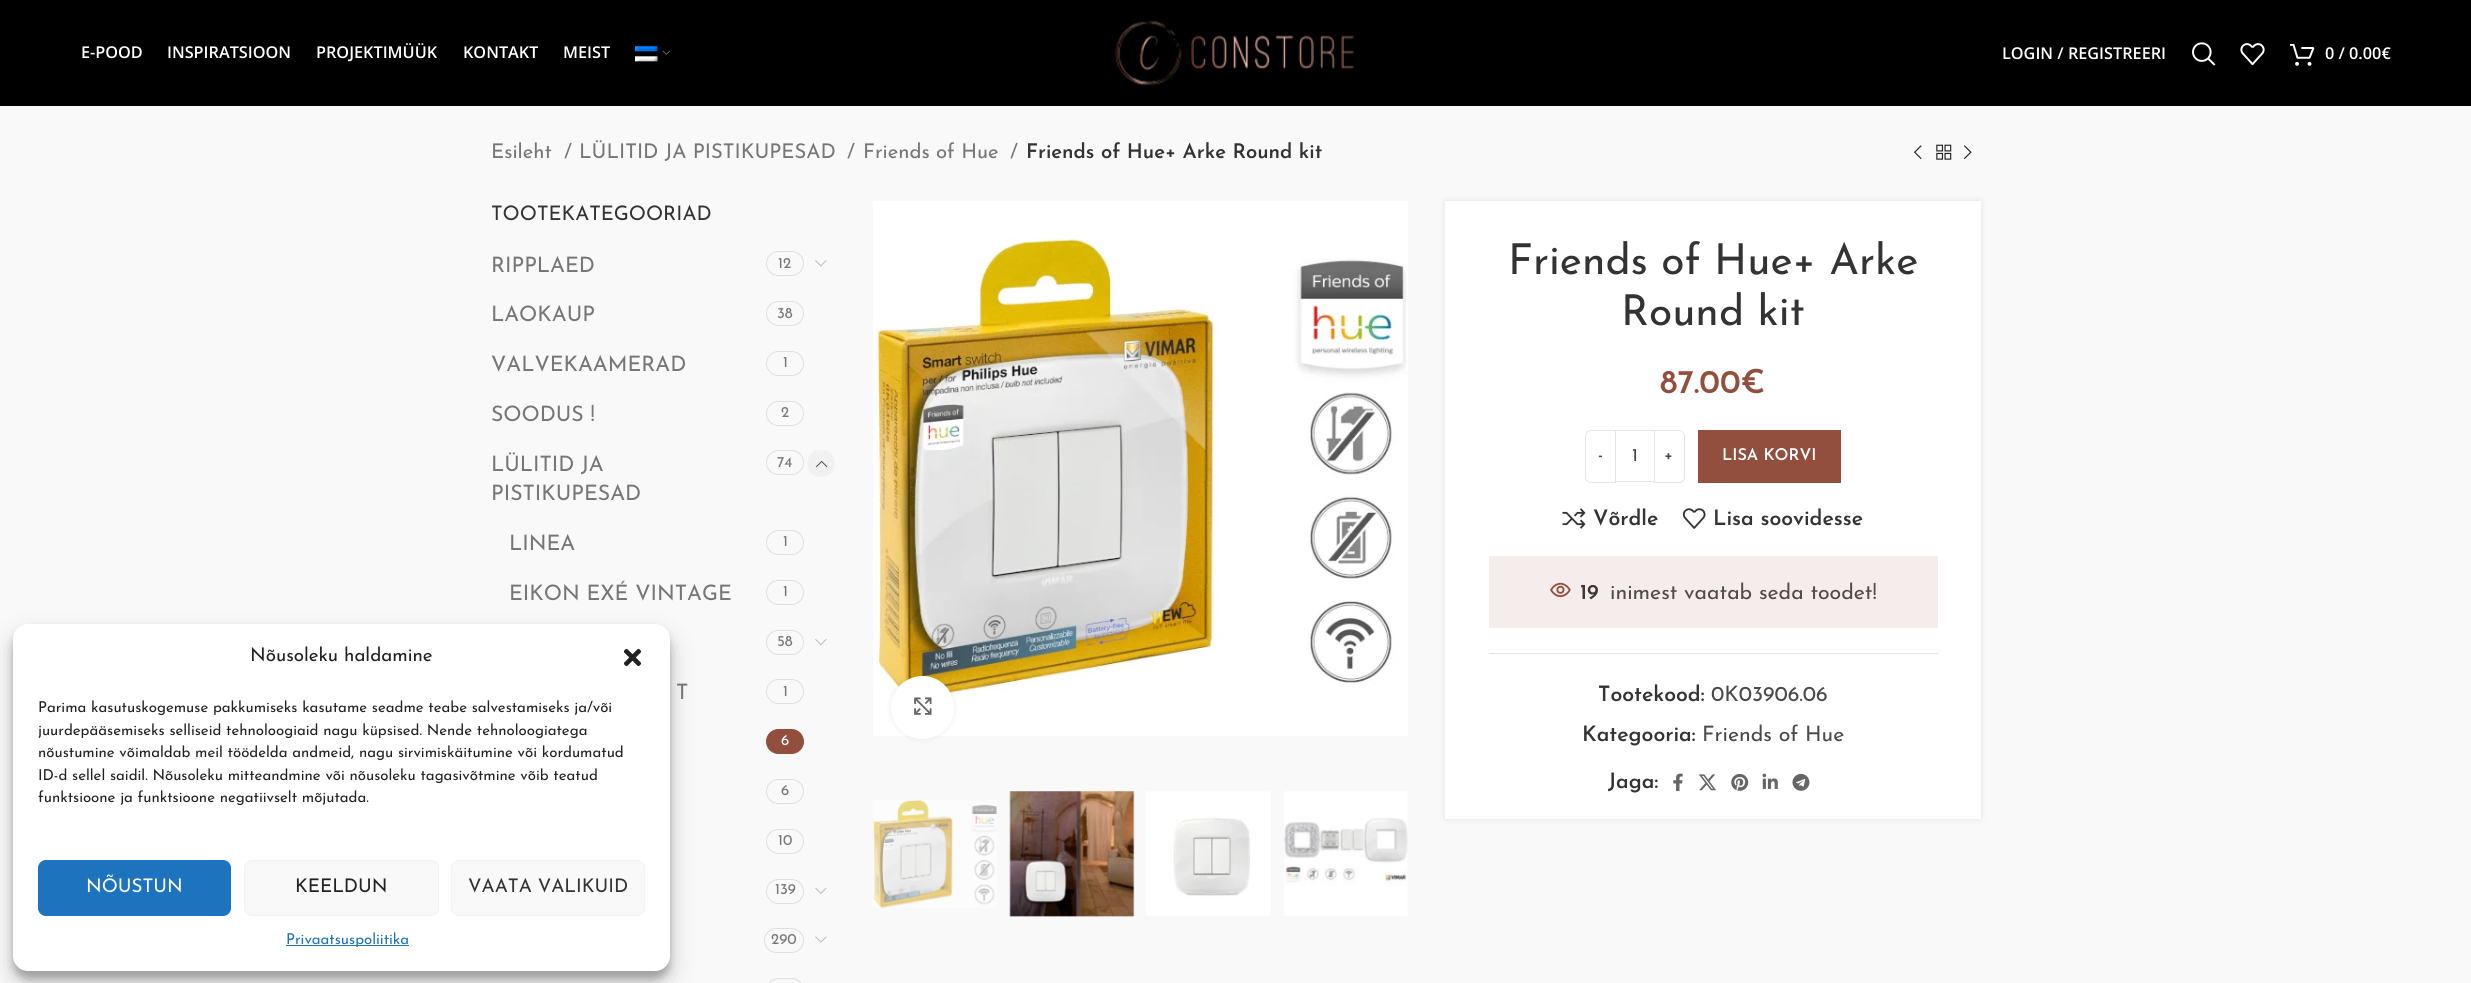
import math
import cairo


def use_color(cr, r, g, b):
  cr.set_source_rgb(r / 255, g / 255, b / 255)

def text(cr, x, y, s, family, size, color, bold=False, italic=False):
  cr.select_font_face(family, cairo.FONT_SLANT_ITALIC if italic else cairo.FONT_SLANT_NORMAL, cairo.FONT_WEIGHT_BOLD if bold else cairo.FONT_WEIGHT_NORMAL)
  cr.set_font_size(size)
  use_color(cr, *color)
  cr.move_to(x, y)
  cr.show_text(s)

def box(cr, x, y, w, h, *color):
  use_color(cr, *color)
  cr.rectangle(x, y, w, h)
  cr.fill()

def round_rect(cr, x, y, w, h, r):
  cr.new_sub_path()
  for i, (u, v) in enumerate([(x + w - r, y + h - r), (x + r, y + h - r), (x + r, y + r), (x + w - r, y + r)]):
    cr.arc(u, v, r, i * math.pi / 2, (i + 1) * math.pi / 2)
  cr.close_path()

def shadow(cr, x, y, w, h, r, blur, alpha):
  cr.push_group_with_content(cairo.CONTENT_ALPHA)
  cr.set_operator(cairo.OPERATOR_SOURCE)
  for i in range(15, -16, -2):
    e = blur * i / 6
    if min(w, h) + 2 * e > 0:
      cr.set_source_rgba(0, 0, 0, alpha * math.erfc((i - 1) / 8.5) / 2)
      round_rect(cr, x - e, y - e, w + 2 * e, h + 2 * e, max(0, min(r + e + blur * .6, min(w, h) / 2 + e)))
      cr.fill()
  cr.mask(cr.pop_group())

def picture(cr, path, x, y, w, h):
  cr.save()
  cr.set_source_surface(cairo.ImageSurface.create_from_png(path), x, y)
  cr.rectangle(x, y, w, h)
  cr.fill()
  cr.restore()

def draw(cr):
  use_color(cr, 249, 249, 249)
  cr.paint()
  box(cr, 0, 0, 2471, 106, 0, 0, 0)
  picture(cr, "img_01.png", 635, 46, 23, 16)
  picture(cr, "img_02.png", 662, 50, 8, 5)
  picture(cr, "img_03.png", 1115, 20, 239, 66)
  picture(cr, "img_04.png", 2192, 42, 24, 24)
  picture(cr, "img_05.png", 2240, 43, 25, 22)
  picture(cr, "img_06.png", 2290, 43, 25, 23)
  picture(cr, "img_07.png", 1913, 145, 9, 15)
  picture(cr, "img_08.png", 1936, 144, 16, 16)
  picture(cr, "img_09.png", 1963, 145, 9, 15)
  round_rect(cr, 766.5, 251.5, 37, 24, 12)
  use_color(cr, 223, 223, 223)
  cr.set_line_width(1)
  cr.stroke()
  picture(cr, "img_10.png", 815, 260, 12, 7)
  round_rect(cr, 766.5, 301.5, 37, 24, 12)
  cr.stroke()
  round_rect(cr, 766.5, 351.5, 37, 24, 12)
  cr.stroke()
  round_rect(cr, 766.5, 401.5, 37, 24, 12)
  cr.stroke()
  round_rect(cr, 766.5, 450.5, 37, 24, 12)
  cr.stroke()
  use_color(cr, 241, 241, 241)
  cr.new_path()
  cr.move_to(821, 477)
  cr.curve_to(803, 477, 803, 449.5, 821, 449.5)
  cr.curve_to(839.5, 449.5, 839.5, 477, 821, 477)
  cr.close_path()
  cr.fill()
  picture(cr, "img_11.png", 815, 460, 13, 8)
  round_rect(cr, 766.5, 530.5, 37, 24, 12)
  use_color(cr, 223, 223, 223)
  cr.stroke()
  round_rect(cr, 766.5, 580.5, 37, 24, 12)
  cr.stroke()
  round_rect(cr, 766.5, 630.5, 37, 24, 12)
  cr.stroke()
  picture(cr, "img_12.png", 815, 639, 12, 7)
  round_rect(cr, 766.5, 679.5, 37, 24, 12)
  cr.stroke()
  use_color(cr, 146, 79, 62)
  round_rect(cr, 766.5, 729.5, 37, 24, 12)
  cr.fill_preserve()
  cr.stroke()
  round_rect(cr, 766.5, 779.5, 37, 24, 12)
  use_color(cr, 223, 223, 223)
  cr.stroke()
  round_rect(cr, 766.5, 829.5, 37, 24, 12)
  cr.stroke()
  round_rect(cr, 766.5, 879.5, 37, 24, 12)
  cr.stroke()
  picture(cr, "img_13.png", 815, 887, 12, 7)
  round_rect(cr, 764.5, 928.5, 39, 24, 12)
  cr.stroke()
  picture(cr, "img_14.png", 815, 936, 12, 7)
  round_rect(cr, 766.5, 978.5, 37, 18, 12)
  cr.stroke()
  picture(cr, "img_15.png", 873, 201, 535, 535)
  use_color(cr, 0, 0, 0)
  shadow(cr, 891, 676, 63, 63, 31.5, 3, 0.08)
  use_color(cr, 255, 255, 255)
  cr.arc(922.5, 707.5, 31.5, 0, 2 * math.pi)
  cr.fill()
  picture(cr, "img_16.png", 914, 697, 18, 18)
  picture(cr, "img_17.png", 873, 800, 124, 108)
  picture(cr, "img_18.png", 1009, 791, 126, 126)
  picture(cr, "img_19.png", 1146, 791, 125, 125)
  picture(cr, "img_20.png", 1284, 791, 124, 125)
  use_color(cr, 0, 0, 0)
  shadow(cr, 1445, 201, 536, 618, 0, 3, 0.1)
  box(cr, 1445, 201, 536, 618, 255, 255, 255)
  box(cr, 1489, 556, 449, 72, 244, 237, 236)
  cr.new_path()
  cr.move_to(1591, 430.5)
  cr.line_to(1615.5, 430.5)
  cr.line_to(1615.5, 482.5)
  cr.line_to(1591, 482.5)
  cr.curve_to(1588, 482.5, 1585.5, 480, 1585.5, 477)
  cr.line_to(1585.5, 436)
  cr.curve_to(1585.5, 433, 1588, 430.5, 1591, 430.5)
  cr.close_path()
  use_color(cr, 230, 230, 230)
  cr.stroke()
  box(cr, 1616, 430, 38, 1, 230, 230, 230)
  box(cr, 1616, 481, 38, 1, 230, 230, 230)
  cr.new_path()
  cr.move_to(1654.5, 430.5)
  cr.line_to(1679, 430.5)
  cr.curve_to(1682, 430.5, 1684.5, 433, 1684.5, 436)
  cr.line_to(1684.5, 477)
  cr.curve_to(1684.5, 480, 1682, 482.5, 1679, 482.5)
  cr.line_to(1654.5, 482.5)
  cr.close_path()
  cr.stroke()
  box(cr, 1698, 430, 143, 53, 146, 79, 62)
  picture(cr, "img_21.png", 1562, 508, 24, 21)
  picture(cr, "img_22.png", 1682, 508, 24, 21)
  picture(cr, "img_23.png", 1550, 582, 21, 16)
  box(cr, 1489, 653, 449, 1, 228, 228, 228)
  picture(cr, "img_24.png", 1673, 773, 10, 19)
  picture(cr, "img_25.png", 1698, 774, 19, 17)
  picture(cr, "img_26.png", 1731, 773, 18, 18)
  picture(cr, "img_27.png", 1762, 773, 16, 16)
  picture(cr, "img_28.png", 1792, 773, 18, 18)
  use_color(cr, 0, 0, 0)
  shadow(cr, 13, 631, 657, 348, 15, 4, 0.23)
  shadow(cr, 13, 636, 657, 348, 15, 12.5, 0.19)
  use_color(cr, 255, 255, 255)
  round_rect(cr, 13, 624, 657, 347, 15)
  cr.fill()
  picture(cr, "img_29.png", 623, 648, 19, 19)
  use_color(cr, 30, 115, 190)
  round_rect(cr, 38.5, 860.5, 192, 55, 7.5)
  cr.fill_preserve()
  cr.stroke()
  use_color(cr, 249, 249, 249)
  round_rect(cr, 244.5, 860.5, 194, 55, 7.5)
  cr.fill_preserve()
  use_color(cr, 242, 242, 242)
  cr.stroke()
  use_color(cr, 249, 249, 249)
  round_rect(cr, 451.5, 860.5, 193, 55, 7.5)
  cr.fill_preserve()
  use_color(cr, 242, 242, 242)
  cr.stroke()
  box(cr, 286, 945, 123, 1, 30, 115, 190)
  text(cr, 81, 58, "E-POOD", "Open Sans SemiBold", 16.25, (255, 255, 255))
  text(cr, 167, 58, "INSPIRATSIOON", "Open Sans SemiBold", 16.25, (255, 255, 255))
  text(cr, 316, 58, "PROJEKTIMÜÜK", "Open Sans SemiBold", 16.25, (255, 255, 255))
  text(cr, 463, 58, "KONTAKT", "Open Sans SemiBold", 16.25, (255, 255, 255))
  text(cr, 563, 58, "MEIST", "Open Sans SemiBold", 16.25, (255, 255, 255))
  text(cr, 2002, 59, "LOGIN / REGISTREERI", "Open Sans SemiBold", 16.25, (255, 255, 255))
  text(cr, 2325, 59, "0 / 0.00€", "Open Sans SemiBold", 16.25, (255, 255, 255))
  text(cr, 491, 158, "Esileht", "Josefin Sans", 20.25, (118, 118, 118))
  text(cr, 564, 158, "/", "Josefin Sans", 20.25, (118, 118, 118))
  text(cr, 579, 158, "LÜLITID JA PISTIKUPESAD", "Josefin Sans", 20.25, (118, 118, 118))
  text(cr, 847, 158, "/", "Josefin Sans", 20.25, (118, 118, 118))
  text(cr, 863, 158, "Friends of Hue", "Josefin Sans", 20.25, (118, 118, 118))
  text(cr, 1010, 158, "/", "Josefin Sans", 20.25, (118, 118, 118))
  text(cr, 1026, 158, "Friends of Hue+ Arke Round kit", "Josefin Sans SemiBold", 20.25, (51, 51, 51))
  text(cr, 491, 220, "TOOTEKATEGOORIAD", "Josefin Sans", 20, (51, 51, 51))
  text(cr, 491, 272, "RIPPLAED", "Josefin Sans", 21.25, (118, 118, 118))
  text(cr, 778, 268, "12", "Josefin Sans", 15, (118, 118, 118))
  text(cr, 491, 321, "LAOKAUP", "Josefin Sans", 21.25, (118, 118, 118))
  text(cr, 777, 318, "38", "Josefin Sans", 15, (118, 118, 118))
  text(cr, 491, 371, "VALVEKAAMERAD", "Josefin Sans", 21.25, (118, 118, 118))
  text(cr, 783, 367, "1", "Josefin Sans", 15, (118, 118, 118))
  text(cr, 491, 421, "SOODUS !", "Josefin Sans", 21.25, (118, 118, 118))
  text(cr, 781, 417, "2", "Josefin Sans", 15, (118, 118, 118))
  text(cr, 491, 471, "LÜLITID JA", "Josefin Sans", 21.25, (118, 118, 118))
  text(cr, 491, 500, "PISTIKUPESAD", "Josefin Sans", 21.25, (118, 118, 118))
  text(cr, 777, 467, "74", "Josefin Sans", 15, (118, 118, 118))
  text(cr, 509, 550, "LINEA", "Josefin Sans", 21.25, (118, 118, 118))
  text(cr, 783, 546, "1", "Josefin Sans", 15, (118, 118, 118))
  text(cr, 509, 600, "EIKON EXÉ VINTAGE", "Josefin Sans", 21.25, (118, 118, 118))
  text(cr, 783, 596, "1", "Josefin Sans", 15, (118, 118, 118))
  text(cr, 777, 646, "58", "Josefin Sans", 15, (118, 118, 118))
  text(cr, 676, 699, "T", "Josefin Sans", 21.25, (118, 118, 118))
  text(cr, 783, 696, "1", "Josefin Sans", 15, (118, 118, 118))
  text(cr, 781, 745, "6", "Josefin Sans", 15, (255, 255, 255))
  text(cr, 781, 795, "6", "Josefin Sans", 15, (118, 118, 118))
  text(cr, 778, 845, "10", "Josefin Sans", 15, (118, 118, 118))
  text(cr, 775, 894, "139", "Josefin Sans", 15, (118, 118, 118))
  text(cr, 771, 944, "290", "Josefin Sans", 15, (118, 118, 118))
  text(cr, 1508, 274, "Friends of Hue+ Arke", "Josefin Sans", 42.5, (51, 51, 51))
  text(cr, 1621, 325, "Round kit", "Josefin Sans", 42.5, (51, 51, 51))
  text(cr, 1660, 393, "87.00€", "Josefin Sans SemiBold", 33, (146, 79, 62))
  text(cr, 1598, 460, "-", "Josefin Sans SemiBold", 16.25, (73, 73, 73))
  text(cr, 1632, 461, "1", "Josefin Sans", 18, (73, 73, 73))
  text(cr, 1664, 460, "+", "Josefin Sans SemiBold", 16.25, (73, 73, 73))
  text(cr, 1722, 460, "LISA KORVI", "Josefin Sans SemiBold", 16.25, (255, 255, 255))
  cr.new_path()
  cr.move_to(1761, 464)
  cr.curve_to(1757, 459.5, 1757, 453, 1761, 448.5)
  use_color(cr, 146, 79, 62)
  cr.set_line_width(1.2)
  cr.stroke()
  text(cr, 1593, 525, "Võrdle", "Josefin Sans SemiBold", 21.25, (51, 51, 51))
  text(cr, 1713, 525, "Lisa soovidesse", "Josefin Sans SemiBold", 21.25, (51, 51, 51))
  text(cr, 1580, 599, "19", "Josefin Sans SemiBold", 21.25, (61, 54, 52))
  text(cr, 1610, 599, "inimest vaatab seda toodet!", "Josefin Sans", 21.25, (80, 74, 72))
  text(cr, 1598, 701, "Tootekood:", "Josefin Sans SemiBold", 21.25, (51, 51, 51))
  text(cr, 1711, 701, "0K03906.06", "Josefin Sans", 21.25, (73, 73, 73))
  text(cr, 1582, 741, "Kategooria:", "Josefin Sans SemiBold", 21.25, (51, 51, 51))
  text(cr, 1702, 741, "Friends of Hue", "Josefin Sans", 21.25, (73, 73, 73))
  text(cr, 1608, 788, "Jaga:", "Josefin Sans SemiBold", 21.25, (51, 51, 51))
  text(cr, 250, 661, "Nõusoleku haldamine", "Josefin Sans", 18.75, (34, 34, 34))
  text(cr, 38, 712, "Parima kasutuskogemuse pakkumiseks kasutame seadme teabe salvestamiseks ja/või", "Josefin Sans", 15, (34, 34, 34))
  text(cr, 38, 735, "juurdepääsemiseks selliseid tehnoloogiaid nagu küpsised. Nende tehnoloogiatega", "Josefin Sans", 15, (34, 34, 34))
  text(cr, 38, 757, "nõustumine võimaldab meil töödelda andmeid, nagu sirvimiskäitumine või kordumatud", "Josefin Sans", 15, (34, 34, 34))
  text(cr, 38, 780, "ID-d sellel saidil. Nõusoleku mitteandmine või nõusoleku tagasivõtmine võib teatud", "Josefin Sans", 15, (34, 34, 34))
  text(cr, 38, 802, "funktsioone ja funktsioone negatiivselt mõjutada.", "Josefin Sans", 15, (34, 34, 34))
  text(cr, 86, 892, "NÕUSTUN", "Josefin Sans", 18.75, (255, 255, 255))
  text(cr, 295, 892, "KEELDUN", "Josefin Sans", 18.75, (34, 34, 34))
  text(cr, 468, 892, "VAATA VALIKUID", "Josefin Sans", 18.75, (51, 51, 51))
  text(cr, 286, 944, "Privaatsuspoliitika", "Josefin Sans", 15, (30, 115, 190))


surface = cairo.ImageSurface(cairo.FORMAT_RGB24, 2471, 983)
cr = cairo.Context(surface)
options = cairo.FontOptions()
options.set_hint_metrics(cairo.HINT_METRICS_OFF)
options.set_hint_style(cairo.HINT_STYLE_NONE)
cr.set_font_options(options)
cr.set_miter_limit(4)
draw(cr)
surface.write_to_png("out.png")
